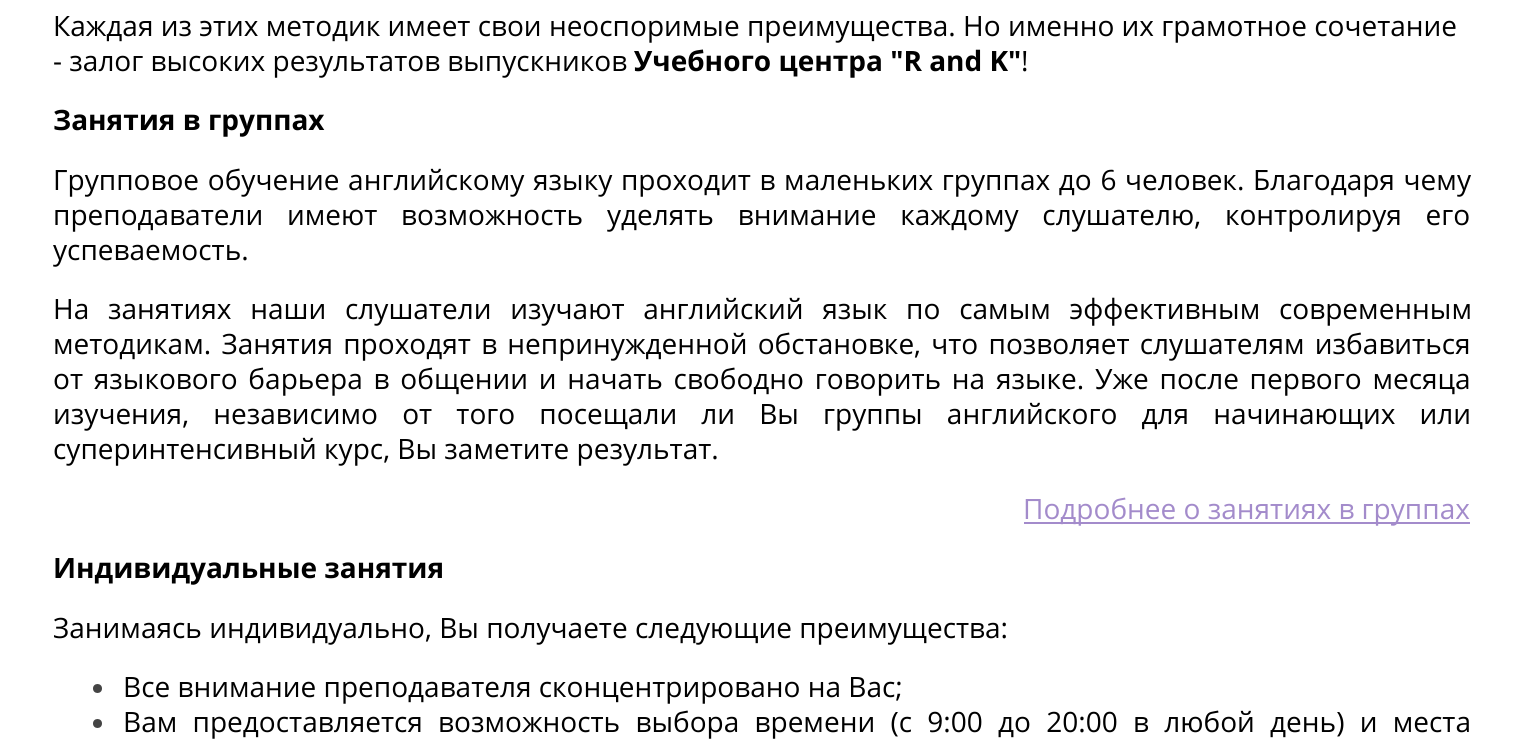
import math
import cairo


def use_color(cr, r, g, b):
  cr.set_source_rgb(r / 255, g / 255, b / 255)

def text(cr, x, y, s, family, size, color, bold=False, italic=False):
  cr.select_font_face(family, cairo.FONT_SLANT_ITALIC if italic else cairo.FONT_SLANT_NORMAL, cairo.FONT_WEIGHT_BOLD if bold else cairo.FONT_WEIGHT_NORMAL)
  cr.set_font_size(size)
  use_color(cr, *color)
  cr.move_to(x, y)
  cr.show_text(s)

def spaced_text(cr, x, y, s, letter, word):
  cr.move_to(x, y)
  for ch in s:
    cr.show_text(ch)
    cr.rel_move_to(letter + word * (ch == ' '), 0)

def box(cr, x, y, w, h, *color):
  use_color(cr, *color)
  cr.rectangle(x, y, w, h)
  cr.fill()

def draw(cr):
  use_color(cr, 255, 255, 255)
  cr.paint()
  box(cr, 1024, 522, 446, 2, 163, 139, 203)
  use_color(cr, 68, 68, 68)
  cr.arc(97.5, 688.5, 4.5, 0, 2 * math.pi)
  cr.fill()
  cr.arc(97.5, 723.5, 4.5, 0, 2 * math.pi)
  cr.fill()
  text(cr, 53, 36, "Каждая из этих методик имеет свои неоспоримые преимущества. Но именно их грамотное сочетание", "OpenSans", 28, (0, 0, 0))
  text(cr, 53, 71, "- залог высоких результатов выпускников", "OpenSans", 28, (0, 0, 0))
  text(cr, 634, 71, "Учебного центра \"R and K\"", "OpenSans", 28, (0, 0, 0), bold=True)
  text(cr, 1021, 71, "!", "OpenSans", 28, (0, 0, 0))
  text(cr, 53, 130, "Занятия в группах", "OpenSans", 28, (0, 0, 0), bold=True)
  cr.select_font_face("OpenSans")
  spaced_text(cr, 53, 190, "Групповое обучение английскому языку проходит в маленьких группах до 6 человек. Благодаря чему", 0, 1.4)
  spaced_text(cr, 53, 225, "преподаватели имеют возможность уделять внимание каждому слушателю, контролируя его", 0, 16.5)
  text(cr, 53, 260, "успеваемость.", "OpenSans", 28, (0, 0, 0))
  spaced_text(cr, 53, 319, "На занятиях наши слушатели изучают английский язык по самым эффективным современным", 0, 11.5)
  spaced_text(cr, 53, 354, "методикам. Занятия проходят в непринужденной обстановке, что позволяет слушателям избавиться", 0, 3)
  spaced_text(cr, 53, 389, "от языкового барьера в общении и начать свободно говорить на языке. Уже после первого месяца", 0, 3.5)
  spaced_text(cr, 53, 424, "изучения, независимо от того посещали ли Вы группы английского для начинающих или", 0, 16.9)
  text(cr, 53, 459, "суперинтенсивный курс, Вы заметите результат.", "OpenSans", 28, (0, 0, 0))
  text(cr, 1023, 519, "Подробнее о занятиях в группах", "OpenSans", 28, (163, 139, 203))
  text(cr, 53, 578, "Индивидуальные занятия", "OpenSans", 28, (0, 0, 0), bold=True)
  text(cr, 53, 638, "Занимаясь индивидуально, Вы получаете следующие преимущества:", "OpenSans", 28, (0, 0, 0))
  text(cr, 123, 697, "Все внимание преподавателя сконцентрировано на Вас;", "OpenSans", 28, (0, 0, 0))
  spaced_text(cr, 123, 732, "Вам предоставляется возможность выбора времени (с 9:00 до 20:00 в любой день) и места", 0, 8)


surface = cairo.ImageSurface(cairo.FORMAT_RGB24, 1522, 742)
cr = cairo.Context(surface)
options = cairo.FontOptions()
options.set_hint_metrics(cairo.HINT_METRICS_OFF)
options.set_hint_style(cairo.HINT_STYLE_NONE)
cr.set_font_options(options)
cr.set_miter_limit(4)
draw(cr)
surface.write_to_png("out.png")
